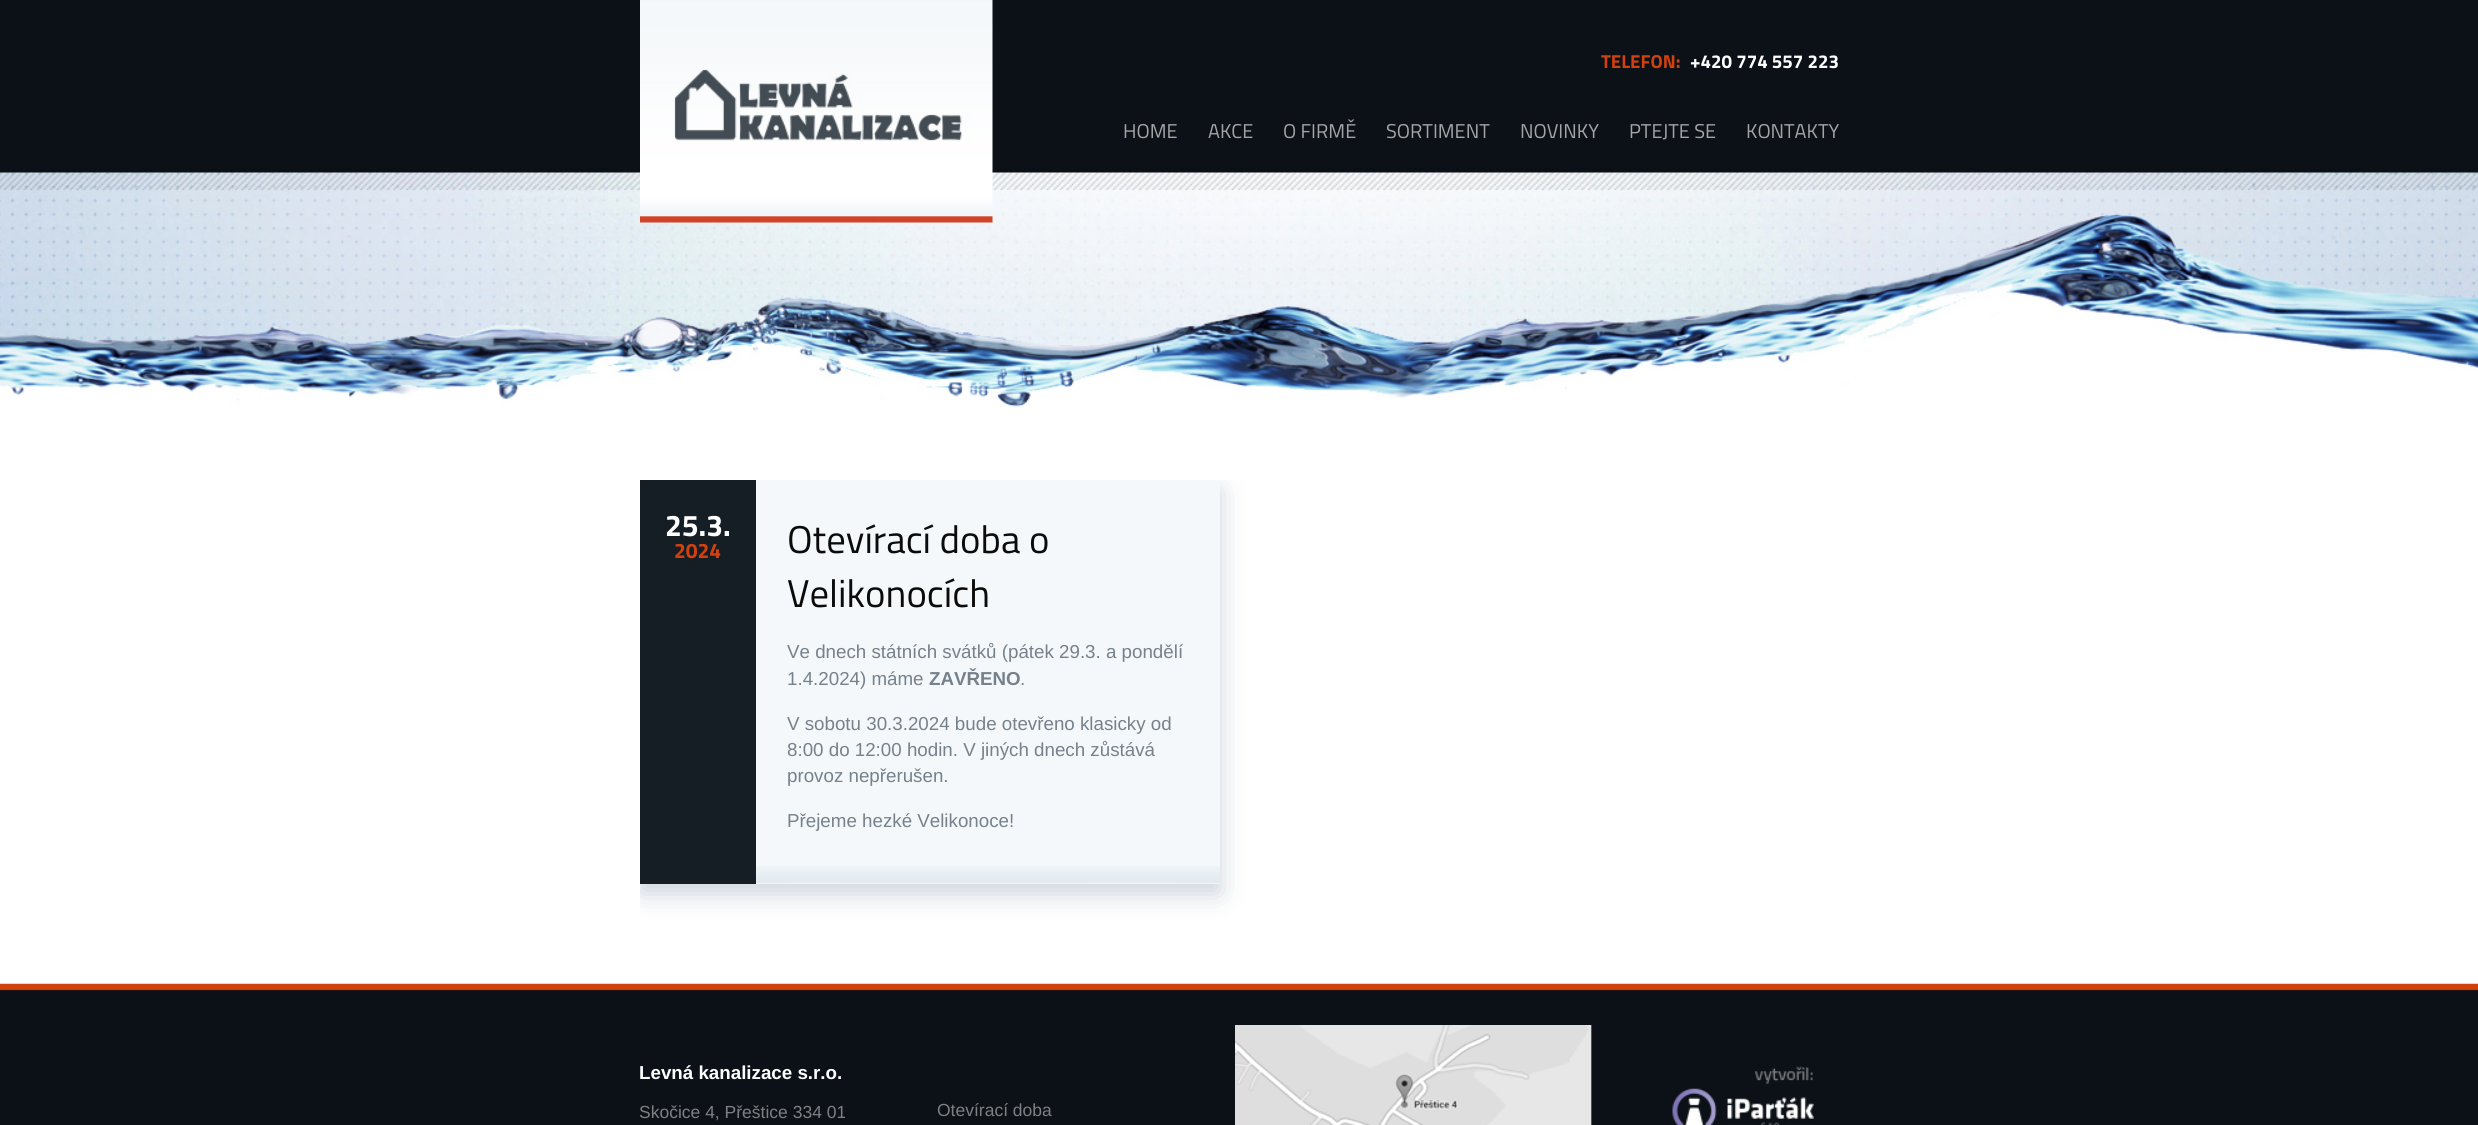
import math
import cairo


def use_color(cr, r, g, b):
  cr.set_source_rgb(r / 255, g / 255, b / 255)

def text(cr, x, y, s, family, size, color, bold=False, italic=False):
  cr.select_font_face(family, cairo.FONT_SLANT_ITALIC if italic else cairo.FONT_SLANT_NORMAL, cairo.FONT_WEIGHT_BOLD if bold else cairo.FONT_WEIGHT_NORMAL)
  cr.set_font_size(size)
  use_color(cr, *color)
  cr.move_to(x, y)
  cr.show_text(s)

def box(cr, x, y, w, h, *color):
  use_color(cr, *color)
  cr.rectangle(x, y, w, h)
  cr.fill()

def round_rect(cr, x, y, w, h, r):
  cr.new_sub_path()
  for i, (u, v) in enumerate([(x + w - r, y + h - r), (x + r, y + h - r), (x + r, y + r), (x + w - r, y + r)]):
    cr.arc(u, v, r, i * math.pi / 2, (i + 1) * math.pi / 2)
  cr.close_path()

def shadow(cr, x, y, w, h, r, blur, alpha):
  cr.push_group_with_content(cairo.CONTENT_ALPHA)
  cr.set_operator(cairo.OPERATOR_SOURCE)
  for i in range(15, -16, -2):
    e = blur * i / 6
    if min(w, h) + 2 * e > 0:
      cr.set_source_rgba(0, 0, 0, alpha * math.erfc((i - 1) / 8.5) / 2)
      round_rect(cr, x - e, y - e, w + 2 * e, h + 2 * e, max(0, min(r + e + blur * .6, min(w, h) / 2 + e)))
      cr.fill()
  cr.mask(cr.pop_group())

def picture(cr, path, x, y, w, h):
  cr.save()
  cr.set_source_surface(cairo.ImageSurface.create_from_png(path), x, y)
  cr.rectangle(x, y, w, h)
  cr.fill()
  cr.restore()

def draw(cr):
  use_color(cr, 255, 255, 255)
  cr.paint()
  picture(cr, "img_01.png", 0, 0, 2478, 407)
  picture(cr, "img_02.png", 640, 0, 353, 223)
  cr.save()
  cr.rectangle(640, 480, 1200, 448)
  cr.clip()
  use_color(cr, 9, 35, 80)
  shadow(cr, 640, 490, 580, 404, 0, 12.5, 0.2)
  cr.restore()
  box(cr, 640, 480, 116, 404, 21, 29, 37)
  box(cr, 756, 480, 464, 404, 244, 248, 250)
  picture(cr, "img_03.png", 756, 866, 464, 18)
  box(cr, 0, 991, 2478, 134, 11, 17, 22)
  picture(cr, "img_04.png", 0, 983, 2478, 8)
  picture(cr, "img_05.png", 1235, 1025, 357, 100)
  picture(cr, "img_06.png", 1672, 1066, 142, 59)
  text(cr, 1601, 68, "TELEFON:", "Titillium Web", 18.75, (209, 65, 15), bold=True)
  text(cr, 1690, 68, "+420 774 557 223", "Titillium Web", 18.75, (255, 255, 255), bold=True)
  text(cr, 1123, 138, "HOME", "Titillium Web", 20, (165, 165, 165))
  text(cr, 1208, 138, "AKCE", "Titillium Web", 20, (165, 165, 165))
  text(cr, 1283, 138, "O FIRMĚ", "Titillium Web", 20, (165, 165, 165))
  text(cr, 1386, 138, "SORTIMENT", "Titillium Web", 20, (165, 165, 165))
  text(cr, 1520, 138, "NOVINKY", "Titillium Web", 20, (165, 165, 165))
  text(cr, 1629, 138, "PTEJTE SE", "Titillium Web", 20, (165, 165, 165))
  text(cr, 1746, 138, "KONTAKTY", "Titillium Web", 20, (165, 165, 165))
  text(cr, 665, 536, "25.3.", "Titillium Web", 30, (255, 255, 255), bold=True)
  text(cr, 674, 558, "2024", "Titillium Web", 21, (209, 65, 15), bold=True)
  text(cr, 787, 553, "Otevírací doba o", "Titillium Web", 38.75, (11, 11, 11))
  text(cr, 787, 607, "Velikonocích", "Titillium Web", 38.75, (11, 11, 11))
  text(cr, 787, 658, "Ve dnech státních svátků (pátek 29.3. a pondělí", "Liberation Sans", 18.75, (118, 129, 140))
  text(cr, 787, 685, "1.4.2024) máme", "Liberation Sans", 18.75, (118, 129, 140))
  text(cr, 929, 685, "ZAVŘENO", "Liberation Sans", 18.75, (118, 129, 140), bold=True)
  text(cr, 1020, 685, ".", "Liberation Sans", 18.75, (118, 129, 140))
  text(cr, 787, 730, "V sobotu 30.3.2024 bude otevřeno klasicky od", "Liberation Sans", 18.75, (118, 129, 140))
  text(cr, 787, 756, "8:00 do 12:00 hodin. V jiných dnech zůstává", "Liberation Sans", 18.75, (118, 129, 140))
  text(cr, 787, 782, "provoz nepřerušen.", "Liberation Sans", 18.75, (118, 129, 140))
  text(cr, 787, 827, "Přejeme hezké Velikonoce!", "Liberation Sans", 18.75, (118, 129, 140))
  text(cr, 639, 1079, "Levná kanalizace s.r.o.", "Liberation Sans", 18.75, (255, 255, 255), bold=True)
  text(cr, 639, 1118, "Skočice 4, Přeštice 334 01", "Liberation Sans", 17.5, (127, 128, 131))
  text(cr, 937, 1116, "Otevírací doba", "Liberation Sans", 17.5, (127, 128, 131))


surface = cairo.ImageSurface(cairo.FORMAT_RGB24, 2478, 1125)
cr = cairo.Context(surface)
options = cairo.FontOptions()
options.set_hint_metrics(cairo.HINT_METRICS_OFF)
options.set_hint_style(cairo.HINT_STYLE_NONE)
cr.set_font_options(options)
cr.set_miter_limit(4)
draw(cr)
surface.write_to_png("out.png")
